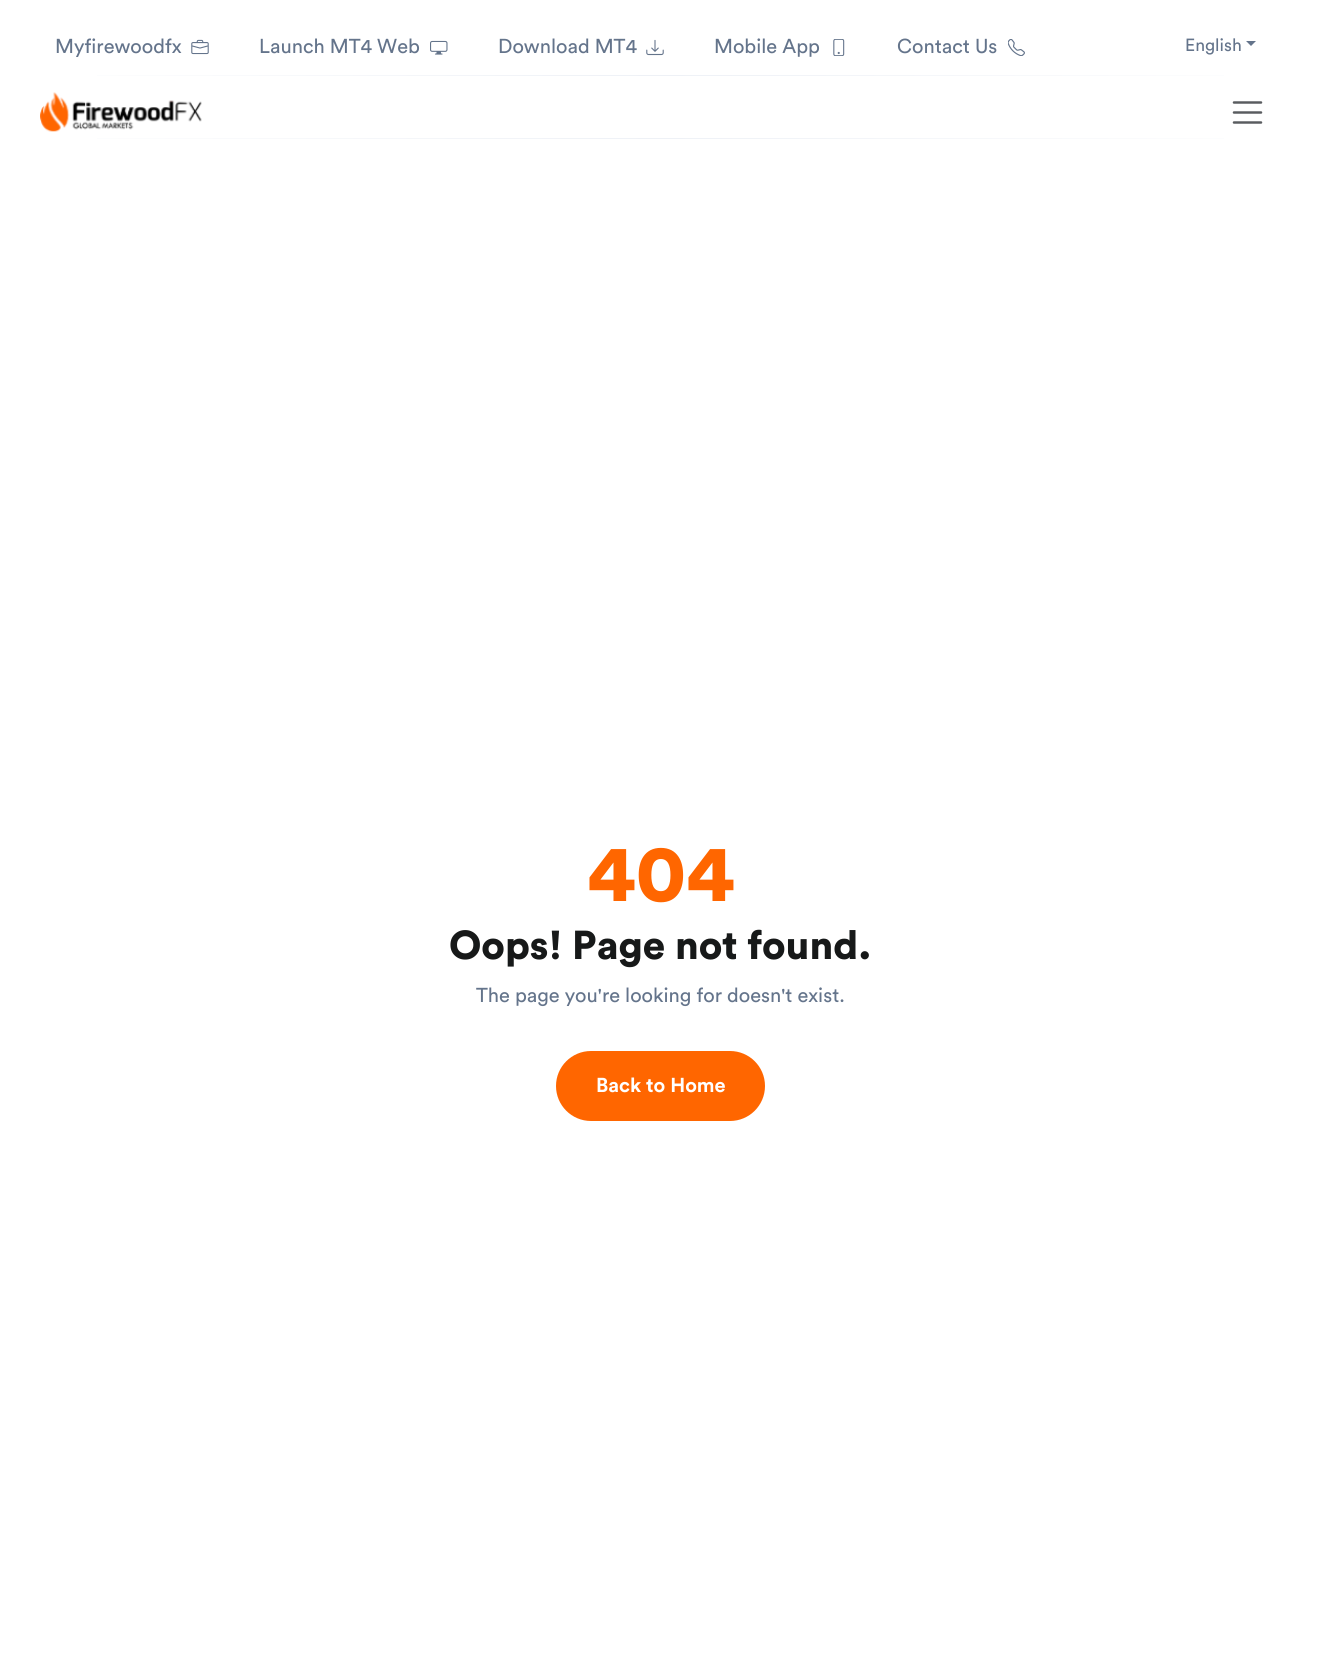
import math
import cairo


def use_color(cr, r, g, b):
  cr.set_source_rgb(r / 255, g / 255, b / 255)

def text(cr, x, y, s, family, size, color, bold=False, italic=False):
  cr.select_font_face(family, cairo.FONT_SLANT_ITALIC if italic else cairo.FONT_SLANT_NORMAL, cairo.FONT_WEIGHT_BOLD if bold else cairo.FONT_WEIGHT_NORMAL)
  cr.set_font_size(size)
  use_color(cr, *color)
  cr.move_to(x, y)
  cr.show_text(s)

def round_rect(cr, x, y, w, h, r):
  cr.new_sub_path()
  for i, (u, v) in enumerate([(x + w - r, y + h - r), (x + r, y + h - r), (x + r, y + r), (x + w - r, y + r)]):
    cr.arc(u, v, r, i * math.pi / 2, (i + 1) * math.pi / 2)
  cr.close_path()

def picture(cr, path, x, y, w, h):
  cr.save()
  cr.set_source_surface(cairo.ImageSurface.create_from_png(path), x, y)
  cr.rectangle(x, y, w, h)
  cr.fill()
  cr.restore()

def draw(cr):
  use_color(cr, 255, 255, 255)
  cr.paint()
  picture(cr, "img_01.png", 191, 39, 18, 16)
  picture(cr, "img_02.png", 430, 40, 18, 15)
  picture(cr, "img_03.png", 646, 39, 18, 17)
  picture(cr, "img_04.png", 833, 39, 12, 17)
  picture(cr, "img_05.png", 1008, 39, 17, 17)
  use_color(cr, 100, 116, 139)
  cr.new_path()
  cr.move_to(1246, 41)
  cr.line_to(1256, 41)
  cr.line_to(1251, 46)
  cr.close_path()
  cr.fill()
  gradient = cairo.LinearGradient(0, 76, 1321, 76)
  gradient.add_color_stop_rgba(0, 1, 1, 1, 1)
  gradient.add_color_stop_rgba(0.5, 0.933, 0.945, 0.965, 1)
  gradient.add_color_stop_rgba(1, 1, 1, 1, 1)
  cr.set_source(gradient)
  cr.rectangle(97, 75, 1127, 1)
  cr.fill()
  picture(cr, "img_06.png", 40, 92, 162, 40)
  cr.new_path()
  cr.move_to(1234, 102.5)
  cr.line_to(1261, 102.5)
  cr.move_to(1234, 112.5)
  cr.line_to(1261, 112.5)
  cr.move_to(1234, 122.5)
  cr.line_to(1261, 122.5)
  use_color(cr, 89, 92, 95)
  cr.set_line_width(2.5)
  cr.set_line_cap(cairo.LINE_CAP_ROUND)
  cr.stroke()
  gradient = cairo.LinearGradient(0, 138, 1321, 138)
  gradient.add_color_stop_rgba(0, 1, 1, 1, 1)
  gradient.add_color_stop_rgba(0.5, 0.933, 0.945, 0.965, 1)
  gradient.add_color_stop_rgba(1, 1, 1, 1, 1)
  cr.set_source(gradient)
  cr.rectangle(97, 138, 1127, 1)
  cr.fill()
  use_color(cr, 255, 102, 0)
  round_rect(cr, 556, 1051, 209, 70, 35)
  cr.fill()
  text(cr, 55, 53, "Myfirewoodfx", "Circular", 20, (100, 116, 139))
  text(cr, 259, 53, "Launch MT4 Web", "Circular", 20, (100, 116, 139))
  text(cr, 498, 53, "Download MT4", "Circular", 20, (100, 116, 139))
  text(cr, 714, 53, "Mobile App", "Circular", 20, (100, 116, 139))
  text(cr, 897, 53, "Contact Us", "Circular", 20, (100, 116, 139))
  text(cr, 1185, 51, "English", "Circular", 17.5, (100, 116, 139))
  text(cr, 587, 901, "404", "Circular Black", 80, (255, 102, 0))
  text(cr, 449, 959, "Oops! Page not found.", "Circular Black", 40, (23, 25, 25))
  text(cr, 476, 1002, "The page you're looking for doesn't exist.", "Circular", 20, (100, 116, 139))
  text(cr, 596, 1092, "Back to Home", "Circular", 20, (255, 255, 255), bold=True)


surface = cairo.ImageSurface(cairo.FORMAT_RGB24, 1321, 1673)
cr = cairo.Context(surface)
options = cairo.FontOptions()
options.set_hint_metrics(cairo.HINT_METRICS_OFF)
options.set_hint_style(cairo.HINT_STYLE_NONE)
cr.set_font_options(options)
cr.set_miter_limit(4)
draw(cr)
surface.write_to_png("out.png")
